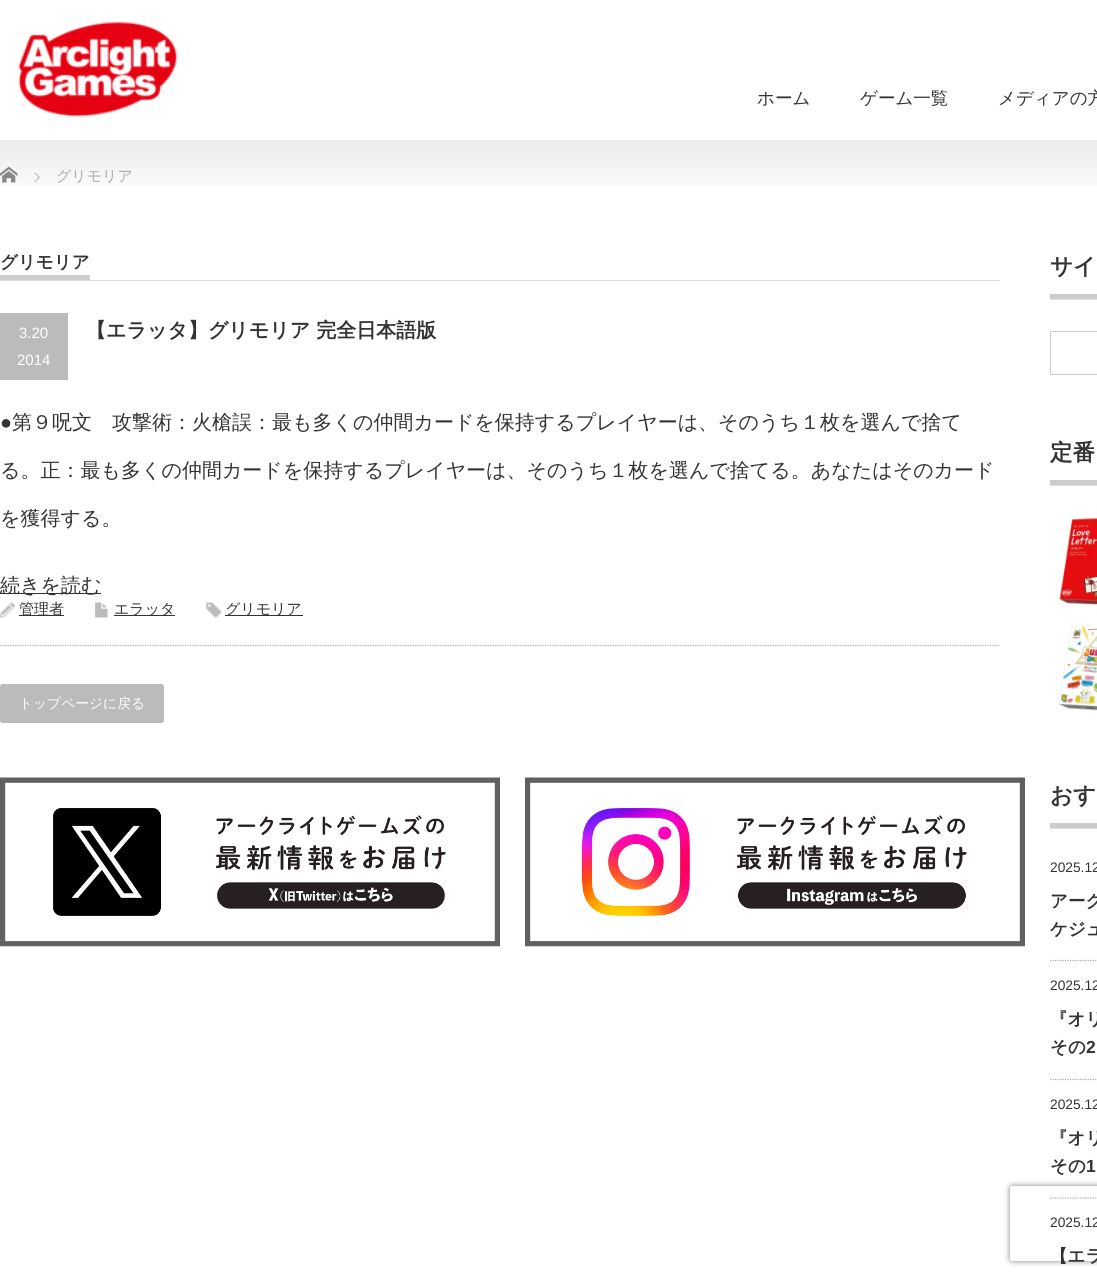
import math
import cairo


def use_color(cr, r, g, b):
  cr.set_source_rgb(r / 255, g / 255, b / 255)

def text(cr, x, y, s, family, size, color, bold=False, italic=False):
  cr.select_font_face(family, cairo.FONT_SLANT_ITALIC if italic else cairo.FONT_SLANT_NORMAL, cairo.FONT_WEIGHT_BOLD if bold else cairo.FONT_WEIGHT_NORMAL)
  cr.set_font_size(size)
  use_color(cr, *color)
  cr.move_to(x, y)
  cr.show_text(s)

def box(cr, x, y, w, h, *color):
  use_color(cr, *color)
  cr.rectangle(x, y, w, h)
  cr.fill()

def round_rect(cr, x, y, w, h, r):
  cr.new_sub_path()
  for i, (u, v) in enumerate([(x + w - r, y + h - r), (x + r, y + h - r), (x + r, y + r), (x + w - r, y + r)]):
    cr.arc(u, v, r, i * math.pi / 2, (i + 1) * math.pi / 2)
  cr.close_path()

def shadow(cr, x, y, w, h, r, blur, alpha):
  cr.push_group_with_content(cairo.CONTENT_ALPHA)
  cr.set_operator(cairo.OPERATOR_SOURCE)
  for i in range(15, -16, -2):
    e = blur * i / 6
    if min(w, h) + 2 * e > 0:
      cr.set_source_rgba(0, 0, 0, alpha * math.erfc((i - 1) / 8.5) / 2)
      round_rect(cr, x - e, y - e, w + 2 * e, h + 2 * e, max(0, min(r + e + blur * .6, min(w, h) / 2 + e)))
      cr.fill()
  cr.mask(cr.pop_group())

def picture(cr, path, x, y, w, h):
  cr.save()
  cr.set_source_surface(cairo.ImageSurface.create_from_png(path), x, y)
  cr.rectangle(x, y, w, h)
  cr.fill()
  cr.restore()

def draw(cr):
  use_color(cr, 255, 255, 255)
  cr.paint()
  picture(cr, "img_01.png", 18, 21, 160, 96)
  picture(cr, "img_02.png", 0, 140, 1097, 46)
  picture(cr, "img_03.png", 0, 166, 18, 17)
  picture(cr, "img_04.png", 34, 172, 6, 11)
  box(cr, 0, 280, 1000, 1, 221, 221, 221)
  box(cr, 0, 275, 90, 5, 204, 204, 204)
  cr.new_path()
  cr.move_to(0, 645.5)
  cr.line_to(1000, 645.5)
  use_color(cr, 170, 170, 170)
  cr.set_line_width(1.2)
  cr.set_dash([1.25, 1.25])
  cr.stroke()
  box(cr, 0, 313, 68, 67, 187, 187, 187)
  box(cr, 0, 593, 101, 1, 51, 51, 51)
  picture(cr, "img_05.png", 0, 602, 15, 16)
  box(cr, 19, 615, 45, 1, 51, 51, 51)
  picture(cr, "img_06.png", 95, 602, 13, 16)
  box(cr, 114, 615, 61, 1, 51, 51, 51)
  picture(cr, "img_07.png", 206, 602, 16, 16)
  box(cr, 225, 615, 78, 1, 51, 51, 51)
  use_color(cr, 187, 187, 187)
  round_rect(cr, 0, 684, 164, 39, 2.5)
  cr.fill()
  picture(cr, "img_08.png", 0, 777, 500, 170)
  picture(cr, "img_09.png", 525, 777, 500, 170)
  box(cr, 1050, 299, 47, 1, 221, 221, 221)
  box(cr, 1050, 294, 47, 5, 204, 204, 204)
  cr.rectangle(1050.5, 331.5, 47, 43)
  cr.set_line_width(1)
  cr.set_dash([])
  cr.stroke()
  box(cr, 1050, 485, 47, 1, 221, 221, 221)
  box(cr, 1050, 480, 47, 5, 204, 204, 204)
  picture(cr, "img_10.png", 1057, 517, 40, 88)
  picture(cr, "img_11.png", 1058, 625, 39, 86)
  box(cr, 1050, 828, 47, 1, 221, 221, 221)
  box(cr, 1050, 823, 47, 5, 204, 204, 204)
  cr.new_path()
  cr.move_to(1050, 960.5)
  cr.line_to(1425, 960.5)
  use_color(cr, 170, 170, 170)
  cr.set_line_width(1.2)
  cr.set_dash([1.25, 1.25])
  cr.stroke()
  cr.new_path()
  cr.move_to(1050, 1079.5)
  cr.line_to(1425, 1079.5)
  cr.stroke()
  cr.new_path()
  cr.move_to(1050, 1198)
  cr.line_to(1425, 1198)
  cr.stroke()
  cr.save()
  cr.set_fill_rule(cairo.FILL_RULE_EVEN_ODD)
  cr.new_path()
  cr.move_to(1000, 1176)
  cr.line_to(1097, 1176)
  cr.line_to(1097, 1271)
  cr.line_to(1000, 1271)
  cr.close_path()
  cr.move_to(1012.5, 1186)
  cr.line_to(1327.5, 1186)
  cr.curve_to(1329, 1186, 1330, 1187, 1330, 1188.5)
  cr.line_to(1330, 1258.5)
  cr.curve_to(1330, 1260, 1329, 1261, 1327.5, 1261)
  cr.line_to(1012.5, 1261)
  cr.curve_to(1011, 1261, 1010, 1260, 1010, 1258.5)
  cr.line_to(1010, 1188.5)
  cr.curve_to(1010, 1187, 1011, 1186, 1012.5, 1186)
  cr.close_path()
  cr.clip()
  use_color(cr, 128, 128, 128)
  shadow(cr, 1010, 1186, 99, 75, 2.5, 3, 1)
  cr.restore()
  text(cr, 757, 104, "ホーム", "WenQuanYi Zen Hei Medium", 17.5, (51, 51, 51))
  text(cr, 860, 104, "ゲーム一覧", "WenQuanYi Zen Hei Medium", 17.5, (51, 51, 51))
  text(cr, 998, 104, "メディアの方", "WenQuanYi Zen Hei Medium", 17.5, (51, 51, 51))
  text(cr, 56, 181, "グリモリア", "WenQuanYi Zen Hei Medium", 15, (170, 170, 170))
  text(cr, 0, 268, "グリモリア", "WenQuanYi Zen Hei", 17.5, (51, 51, 51), bold=True)
  text(cr, 19, 338, "3.20", "Liberation Sans", 15, (255, 255, 255))
  text(cr, 17, 365, "2014", "Liberation Sans", 15, (255, 255, 255))
  text(cr, 86, 337, "【エラッタ】グリモリア 完全日本語版", "WenQuanYi Zen Hei", 20, (51, 51, 51), bold=True)
  text(cr, 0, 429, "●", "Liberation Sans", 20, (51, 51, 51))
  text(cr, 12, 429, "第９呪文　攻撃術：火槍誤：最も多くの仲間カードを保持するプレイヤーは、そのうち１枚を選んで捨て", "WenQuanYi Zen Hei Medium", 20, (51, 51, 51))
  text(cr, 0, 477, "る。正：最も多くの仲間カードを保持するプレイヤーは、そのうち１枚を選んで捨てる。あなたはそのカード", "WenQuanYi Zen Hei Medium", 20, (51, 51, 51))
  text(cr, 0, 525, "を獲得する。", "WenQuanYi Zen Hei Medium", 20, (51, 51, 51))
  text(cr, 0, 592, "続きを読む", "WenQuanYi Zen Hei Medium", 20, (51, 51, 51))
  text(cr, 19, 614, "管理者", "WenQuanYi Zen Hei Medium", 15, (51, 51, 51))
  text(cr, 114, 614, "エラッタ", "WenQuanYi Zen Hei Medium", 15, (51, 51, 51))
  text(cr, 225, 614, "グリモリア", "WenQuanYi Zen Hei Medium", 15, (51, 51, 51))
  text(cr, 19, 708, "トップページに戻る", "WenQuanYi Zen Hei Medium", 13.75, (255, 255, 255))
  text(cr, 1050, 274, "サイ", "WenQuanYi Zen Hei", 22.5, (51, 51, 51), bold=True)
  text(cr, 1050, 460, "定番", "WenQuanYi Zen Hei", 22.5, (51, 51, 51), bold=True)
  text(cr, 1050, 803, "おす", "WenQuanYi Zen Hei", 22.5, (51, 51, 51), bold=True)
  text(cr, 1050, 872, "2025.12", "Liberation Sans", 13.75, (51, 51, 51))
  text(cr, 1050, 907, "アーク", "WenQuanYi Zen Hei", 17.5, (51, 51, 51), bold=True)
  text(cr, 1050, 935, "ケジュ", "WenQuanYi Zen Hei", 17.5, (51, 51, 51), bold=True)
  text(cr, 1050, 990, "2025.12", "Liberation Sans", 13.75, (51, 51, 51))
  text(cr, 1050, 1025, "『オリ", "WenQuanYi Zen Hei", 17.5, (51, 51, 51), bold=True)
  text(cr, 1050, 1053, "その", "WenQuanYi Zen Hei", 17.5, (51, 51, 51), bold=True)
  text(cr, 1086, 1053, "2", "Liberation Sans", 17.5, (51, 51, 51), bold=True)
  text(cr, 1050, 1109, "2025.12", "Liberation Sans", 13.75, (51, 51, 51))
  text(cr, 1050, 1144, "『オリ", "WenQuanYi Zen Hei", 17.5, (51, 51, 51), bold=True)
  text(cr, 1050, 1172, "その", "WenQuanYi Zen Hei", 17.5, (51, 51, 51), bold=True)
  text(cr, 1086, 1172, "1", "Liberation Sans", 17.5, (51, 51, 51), bold=True)
  text(cr, 1050, 1227, "2025.12", "Liberation Sans", 13.75, (51, 51, 51))
  text(cr, 1050, 1262, "【エラ", "WenQuanYi Zen Hei", 17.5, (51, 51, 51), bold=True)


surface = cairo.ImageSurface(cairo.FORMAT_RGB24, 1097, 1278)
cr = cairo.Context(surface)
options = cairo.FontOptions()
options.set_hint_metrics(cairo.HINT_METRICS_OFF)
options.set_hint_style(cairo.HINT_STYLE_NONE)
cr.set_font_options(options)
cr.set_miter_limit(4)
draw(cr)
surface.write_to_png("out.png")
